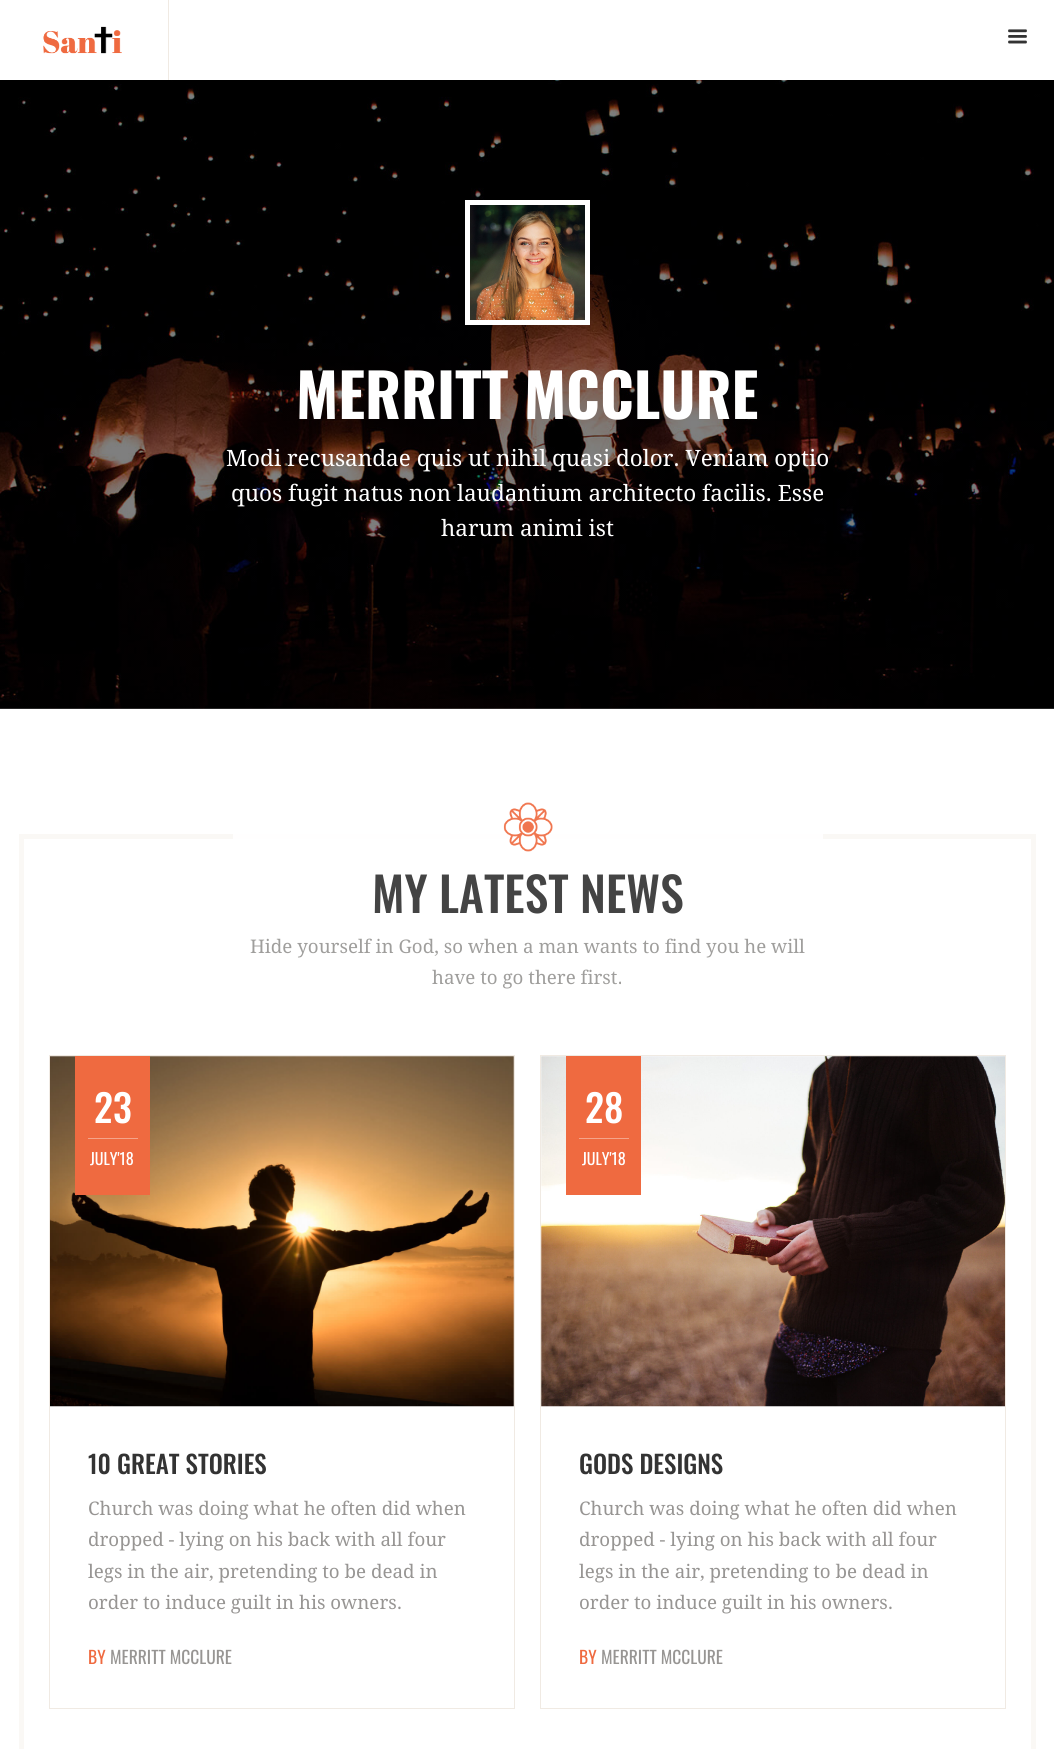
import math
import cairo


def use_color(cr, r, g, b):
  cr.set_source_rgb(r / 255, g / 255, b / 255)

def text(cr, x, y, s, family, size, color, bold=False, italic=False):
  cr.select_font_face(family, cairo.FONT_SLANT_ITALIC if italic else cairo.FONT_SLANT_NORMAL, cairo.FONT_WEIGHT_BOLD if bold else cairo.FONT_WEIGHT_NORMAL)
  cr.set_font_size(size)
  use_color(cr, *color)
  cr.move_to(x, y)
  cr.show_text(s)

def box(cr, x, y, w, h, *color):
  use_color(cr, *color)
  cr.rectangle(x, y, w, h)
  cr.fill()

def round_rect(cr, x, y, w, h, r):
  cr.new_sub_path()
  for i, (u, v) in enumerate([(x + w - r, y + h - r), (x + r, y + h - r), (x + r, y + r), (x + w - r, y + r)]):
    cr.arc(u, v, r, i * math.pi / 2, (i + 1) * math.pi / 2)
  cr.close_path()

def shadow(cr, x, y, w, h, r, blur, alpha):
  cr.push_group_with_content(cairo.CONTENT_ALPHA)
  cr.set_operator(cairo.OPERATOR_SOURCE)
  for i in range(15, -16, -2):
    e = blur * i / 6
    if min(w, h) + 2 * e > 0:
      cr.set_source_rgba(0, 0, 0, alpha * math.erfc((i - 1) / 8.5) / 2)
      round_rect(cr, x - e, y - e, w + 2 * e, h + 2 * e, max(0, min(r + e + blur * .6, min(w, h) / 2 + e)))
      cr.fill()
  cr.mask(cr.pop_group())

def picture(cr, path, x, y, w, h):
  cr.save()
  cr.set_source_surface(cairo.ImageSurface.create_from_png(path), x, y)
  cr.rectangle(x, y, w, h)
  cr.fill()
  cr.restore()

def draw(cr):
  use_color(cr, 255, 255, 255)
  cr.paint()
  picture(cr, "img_03.png", 0, 80, 1054, 629)
  use_color(cr, 0, 0, 0)
  shadow(cr, 1, 1, 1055, 80, 0, 2, 0.1)
  box(cr, 0, 0, 1054, 80, 255, 255, 255)
  box(cr, 168, 0, 1, 80, 240, 234, 227)
  picture(cr, "img_01.png", 43, 26, 79, 28)
  picture(cr, "img_02.png", 1008, 29, 19, 15)
  picture(cr, "img_04.png", 470, 205, 115, 115)
  cr.rectangle(467.5, 202.5, 120, 120)
  use_color(cr, 255, 255, 255)
  cr.set_line_width(5)
  cr.stroke()
  cr.rectangle(21.5, 836.5, 1012, 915)
  use_color(cr, 250, 248, 245)
  cr.stroke()
  cr.set_source_rgba(1, 1, 1, 0.92)
  cr.rectangle(233, 834, 590, 5)
  cr.fill()
  picture(cr, "img_05.png", 503, 802, 50, 50)
  cr.rectangle(49.5, 1055.5, 465, 653)
  use_color(cr, 240, 234, 227)
  cr.set_line_width(1)
  cr.stroke()
  picture(cr, "img_06.png", 50, 1056, 464, 351)
  box(cr, 75, 1056, 75, 139, 239, 106, 64)
  box(cr, 88, 1138, 50, 1, 245, 164, 138)
  cr.rectangle(540.5, 1055.5, 465, 653)
  use_color(cr, 240, 234, 227)
  cr.stroke()
  picture(cr, "img_07.png", 541, 1056, 464, 351)
  box(cr, 566, 1056, 75, 139, 239, 106, 64)
  box(cr, 579, 1138, 50, 1, 245, 164, 138)
  text(cr, 296, 419, "MERRITT MCCLURE", "Oswald", 60, (255, 255, 255), bold=True)
  text(cr, 226, 466, "Modi recusandae quis ut nihil quasi dolor. Veniam optio", "Droid Serif", 22.5, (255, 255, 255))
  text(cr, 231, 501, "quos fugit natus non laudantium architecto facilis. Esse", "Droid Serif", 22.5, (255, 255, 255))
  text(cr, 441, 536, "harum animi ist", "Droid Serif", 22.5, (255, 255, 255))
  text(cr, 372, 913, "MY LATEST NEWS", "Oswald Medium", 47.5, (68, 68, 68))
  text(cr, 250, 953, "Hide yourself in God, so when a man wants to find you he will", "Droid Serif", 18.75, (159, 158, 156))
  text(cr, 432, 984, "have to go there first.", "Droid Serif", 18.75, (159, 158, 156))
  text(cr, 94, 1123, "23", "Oswald Medium", 38, (255, 255, 255))
  text(cr, 90, 1165, "JULY'18", "Oswald", 16, (255, 255, 255))
  text(cr, 88, 1474, "10 GREAT STORIES", "Oswald Medium", 25, (51, 51, 51))
  text(cr, 88, 1515, "Church was doing what he often did when", "Droid Serif", 18.75, (151, 149, 147))
  text(cr, 88, 1546, "dropped - lying on his back with all four", "Droid Serif", 18.75, (151, 149, 147))
  text(cr, 88, 1578, "legs in the air, pretending to be dead in", "Droid Serif", 18.75, (151, 149, 147))
  text(cr, 88, 1609, "order to induce guilt in his owners.", "Droid Serif", 18.75, (151, 149, 147))
  text(cr, 88, 1664, "BY", "Oswald", 17.5, (239, 106, 64))
  text(cr, 110, 1664, "MERRITT MCCLURE", "Oswald", 17.5, (151, 149, 147))
  text(cr, 585, 1123, "28", "Oswald Medium", 38, (255, 255, 255))
  text(cr, 582, 1165, "JULY'18", "Oswald", 16, (255, 255, 255))
  text(cr, 579, 1474, "GODS DESIGNS", "Oswald Medium", 25, (51, 51, 51))
  text(cr, 579, 1515, "Church was doing what he often did when", "Droid Serif", 18.75, (151, 149, 147))
  text(cr, 579, 1546, "dropped - lying on his back with all four", "Droid Serif", 18.75, (151, 149, 147))
  text(cr, 579, 1578, "legs in the air, pretending to be dead in", "Droid Serif", 18.75, (151, 149, 147))
  text(cr, 579, 1609, "order to induce guilt in his owners.", "Droid Serif", 18.75, (151, 149, 147))
  text(cr, 579, 1664, "BY", "Oswald", 17.5, (239, 106, 64))
  text(cr, 601, 1664, "MERRITT MCCLURE", "Oswald", 17.5, (151, 149, 147))


surface = cairo.ImageSurface(cairo.FORMAT_RGB24, 1054, 1749)
cr = cairo.Context(surface)
options = cairo.FontOptions()
options.set_hint_metrics(cairo.HINT_METRICS_OFF)
options.set_hint_style(cairo.HINT_STYLE_NONE)
cr.set_font_options(options)
cr.set_miter_limit(4)
draw(cr)
surface.write_to_png("out.png")
